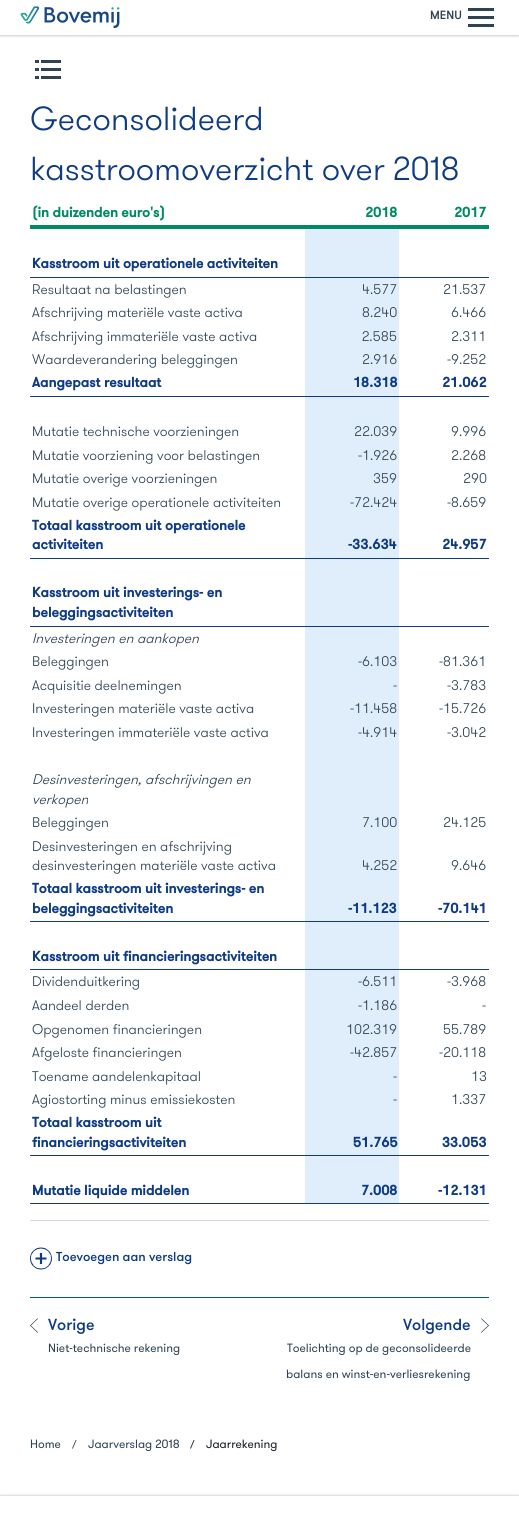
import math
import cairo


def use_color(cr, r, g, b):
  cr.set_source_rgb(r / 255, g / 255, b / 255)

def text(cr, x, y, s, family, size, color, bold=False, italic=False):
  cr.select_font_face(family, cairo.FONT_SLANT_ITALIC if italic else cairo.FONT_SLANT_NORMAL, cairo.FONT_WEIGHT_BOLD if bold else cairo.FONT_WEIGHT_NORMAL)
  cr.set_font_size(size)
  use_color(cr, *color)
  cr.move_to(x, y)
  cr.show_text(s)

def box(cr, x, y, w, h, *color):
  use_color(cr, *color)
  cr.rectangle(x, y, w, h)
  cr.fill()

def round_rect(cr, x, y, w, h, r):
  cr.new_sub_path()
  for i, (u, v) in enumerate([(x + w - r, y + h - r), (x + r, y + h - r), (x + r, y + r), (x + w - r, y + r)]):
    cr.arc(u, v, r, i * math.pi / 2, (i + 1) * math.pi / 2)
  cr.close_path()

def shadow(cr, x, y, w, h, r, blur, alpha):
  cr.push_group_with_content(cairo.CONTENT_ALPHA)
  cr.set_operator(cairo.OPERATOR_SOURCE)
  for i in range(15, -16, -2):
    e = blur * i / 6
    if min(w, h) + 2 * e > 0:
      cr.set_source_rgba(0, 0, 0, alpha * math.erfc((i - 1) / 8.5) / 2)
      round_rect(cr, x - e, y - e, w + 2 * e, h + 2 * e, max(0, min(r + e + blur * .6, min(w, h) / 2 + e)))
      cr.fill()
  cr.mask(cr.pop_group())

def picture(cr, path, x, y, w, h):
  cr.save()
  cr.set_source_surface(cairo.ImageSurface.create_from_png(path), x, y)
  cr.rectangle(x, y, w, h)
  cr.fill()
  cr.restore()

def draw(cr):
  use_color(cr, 255, 255, 255)
  cr.paint()
  use_color(cr, 0, 0, 0)
  shadow(cr, 0, 1, 519, 35, 0, 1, 0.2)
  box(cr, 0, 0, 519, 35, 255, 255, 255)
  picture(cr, "img_01.png", 20, 6, 100, 23)
  box(cr, 468, 8, 26, 3, 46, 67, 84)
  box(cr, 468, 16, 26, 3, 46, 67, 84)
  box(cr, 468, 24, 26, 3, 46, 67, 84)
  box(cr, 41, 60, 20, 3, 46, 67, 84)
  box(cr, 35, 60, 4, 3, 46, 67, 84)
  box(cr, 41, 68, 20, 3, 46, 67, 84)
  box(cr, 35, 68, 4, 3, 46, 67, 84)
  box(cr, 41, 76, 20, 3, 46, 67, 84)
  box(cr, 35, 76, 4, 3, 46, 67, 84)
  box(cr, 30, 225, 459, 4, 0, 138, 100)
  box(cr, 30, 277, 459, 1, 14, 59, 131)
  box(cr, 305, 229, 94, 48, 223, 238, 250)
  box(cr, 305, 278, 94, 118, 223, 238, 250)
  box(cr, 30, 396, 459, 1, 14, 59, 131)
  box(cr, 305, 397, 94, 161, 223, 238, 250)
  box(cr, 30, 558, 459, 1, 14, 59, 131)
  box(cr, 30, 626, 459, 1, 14, 59, 131)
  box(cr, 305, 559, 94, 67, 223, 238, 250)
  box(cr, 305, 627, 94, 294, 223, 238, 250)
  box(cr, 30, 921, 459, 1, 14, 59, 131)
  box(cr, 30, 969, 459, 1, 14, 59, 131)
  box(cr, 305, 922, 94, 47, 223, 238, 250)
  box(cr, 305, 970, 94, 185, 223, 238, 250)
  box(cr, 30, 1155, 459, 1, 14, 59, 131)
  box(cr, 305, 1156, 94, 47, 223, 238, 250)
  box(cr, 30, 1203, 459, 1, 14, 59, 131)
  box(cr, 30, 1220, 459, 1, 213, 217, 221)
  picture(cr, "img_02.png", 30, 1247, 22, 23)
  box(cr, 30, 1297, 459, 1, 0, 96, 85)
  picture(cr, "img_03.png", 30, 1318, 8, 15)
  picture(cr, "img_04.png", 481, 1318, 8, 15)
  use_color(cr, 0, 0, 0)
  shadow(cr, 0, 1496, 519, 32, 0, 1.5, 0.3)
  box(cr, 0, 1496, 519, 27, 255, 255, 255)
  text(cr, 430, 19, "MENU", "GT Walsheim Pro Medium", 12, (46, 67, 84))
  text(cr, 30, 130, "Geconsolideerd", "GT Walsheim Pro Light", 33.25, (14, 59, 131))
  text(cr, 30, 180, "kasstroomoverzicht over 2018", "GT Walsheim Pro Light", 33.25, (14, 59, 131))
  text(cr, 32, 217, "(in duizenden euro's)", "GT Walsheim Pro", 14, (0, 138, 100), bold=True)
  text(cr, 365, 217, "2018", "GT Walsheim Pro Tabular", 14, (0, 138, 100), bold=True)
  text(cr, 454, 217, "2017", "GT Walsheim Pro Tabular", 14, (0, 138, 100), bold=True)
  text(cr, 32, 268, "Kasstroom uit operationele activiteiten", "GT Walsheim Pro", 14, (14, 59, 131), bold=True)
  text(cr, 32, 294, "Resultaat na belastingen", "GT Walsheim Pro Light", 14, (46, 67, 84))
  text(cr, 362, 294, "4.577", "GT Walsheim Pro Tabular Light", 14, (46, 67, 84))
  text(cr, 443, 294, "21.537", "GT Walsheim Pro Tabular Light", 14, (46, 67, 84))
  text(cr, 32, 317, "Afschrijving materiële vaste activa", "GT Walsheim Pro Light", 14, (46, 67, 84))
  text(cr, 362, 317, "8.240", "GT Walsheim Pro Tabular Light", 14, (46, 67, 84))
  text(cr, 451, 317, "6.466", "GT Walsheim Pro Tabular Light", 14, (46, 67, 84))
  text(cr, 32, 341, "Afschrijving immateriële vaste activa", "GT Walsheim Pro Light", 14, (46, 67, 84))
  text(cr, 362, 341, "2.585", "GT Walsheim Pro Light", 14, (46, 67, 84))
  text(cr, 451, 341, "2.311", "GT Walsheim Pro Tabular Light", 14, (46, 67, 84))
  text(cr, 32, 364, "Waardeverandering beleggingen", "GT Walsheim Pro Light", 14, (46, 67, 84))
  text(cr, 362, 364, "2.916", "GT Walsheim Pro Tabular Light", 14, (46, 67, 84))
  text(cr, 447, 364, "-9.252", "GT Walsheim Pro Tabular Light", 14, (46, 67, 84))
  text(cr, 32, 387, "Aangepast resultaat", "GT Walsheim Pro", 14, (14, 59, 131), bold=True)
  text(cr, 353, 387, "18.318", "GT Walsheim Pro Tabular", 14, (14, 59, 131), bold=True)
  text(cr, 442, 387, "21.062", "GT Walsheim Pro Tabular", 14, (14, 59, 131), bold=True)
  text(cr, 32, 436, "Mutatie technische voorzieningen", "GT Walsheim Pro Light", 14, (46, 67, 84))
  text(cr, 354, 436, "22.039", "GT Walsheim Pro Tabular Light", 14, (46, 67, 84))
  text(cr, 451, 436, "9.996", "GT Walsheim Pro Tabular Light", 14, (46, 67, 84))
  text(cr, 32, 460, "Mutatie voorziening voor belastingen", "GT Walsheim Pro Light", 14, (46, 67, 84))
  text(cr, 358, 460, "-1.926", "GT Walsheim Pro Tabular Light", 14, (46, 67, 84))
  text(cr, 451, 460, "2.268", "GT Walsheim Pro Tabular Light", 14, (46, 67, 84))
  text(cr, 32, 483, "Mutatie overige voorzieningen", "GT Walsheim Pro Light", 14, (46, 67, 84))
  text(cr, 373, 483, "359", "GT Walsheim Pro Tabular Light", 14, (46, 67, 84))
  text(cr, 463, 483, "290", "GT Walsheim Pro Tabular Light", 14, (46, 67, 84))
  text(cr, 32, 507, "Mutatie overige operationele activiteiten", "GT Walsheim Pro Light", 14, (46, 67, 84))
  text(cr, 350, 507, "-72.424", "GT Walsheim Pro Tabular Light", 14, (46, 67, 84))
  text(cr, 447, 507, "-8.659", "GT Walsheim Pro Tabular Light", 14, (46, 67, 84))
  text(cr, 32, 530, "Totaal kasstroom uit operationele", "GT Walsheim Pro", 14, (14, 59, 131), bold=True)
  text(cr, 32, 549, "activiteiten", "GT Walsheim Pro", 14, (14, 59, 131), bold=True)
  text(cr, 348, 549, "-33.634", "GT Walsheim Pro Tabular", 14, (14, 59, 131), bold=True)
  text(cr, 442, 549, "24.957", "GT Walsheim Pro Tabular", 14, (14, 59, 131), bold=True)
  text(cr, 32, 597, "Kasstroom uit investerings- en", "GT Walsheim Pro", 14, (14, 59, 131), bold=True)
  text(cr, 32, 617, "beleggingsactiviteiten", "GT Walsheim Pro", 14, (14, 59, 131), bold=True)
  text(cr, 32, 643, "Investeringen en aankopen", "GT Walsheim Pro Light", 14, (46, 67, 84), italic=True)
  text(cr, 32, 666, "Beleggingen", "GT Walsheim Pro Light", 14, (46, 67, 84))
  text(cr, 358, 666, "-6.103", "GT Walsheim Pro Tabular Light", 14, (46, 67, 84))
  text(cr, 439, 666, "-81.361", "GT Walsheim Pro Tabular Light", 14, (46, 67, 84))
  text(cr, 32, 690, "Acquisitie deelnemingen", "GT Walsheim Pro Light", 14, (46, 67, 84))
  text(cr, 393, 690, "-", "GT Walsheim Pro Light", 14, (46, 67, 84))
  text(cr, 447, 690, "-3.783", "GT Walsheim Pro Tabular Light", 14, (46, 67, 84))
  text(cr, 32, 713, "Investeringen materiële vaste activa", "GT Walsheim Pro Light", 14, (46, 67, 84))
  text(cr, 350, 713, "-11.458", "GT Walsheim Pro Tabular Light", 14, (46, 67, 84))
  text(cr, 439, 713, "-15.726", "GT Walsheim Pro Tabular Light", 14, (46, 67, 84))
  text(cr, 32, 737, "Investeringen immateriële vaste activa", "GT Walsheim Pro Light", 14, (46, 67, 84))
  text(cr, 358, 737, "-4.914", "GT Walsheim Pro Tabular Light", 14, (46, 67, 84))
  text(cr, 447, 737, "-3.042", "GT Walsheim Pro Tabular Light", 14, (46, 67, 84))
  text(cr, 32, 784, "Desinvesteringen, afschrijvingen en", "GT Walsheim Pro Light", 14, (46, 67, 84), italic=True)
  text(cr, 32, 804, "verkopen", "GT Walsheim Pro Light", 14, (46, 67, 84), italic=True)
  text(cr, 32, 827, "Beleggingen", "GT Walsheim Pro Light", 14, (46, 67, 84))
  text(cr, 362, 827, "7.100", "GT Walsheim Pro Tabular Light", 14, (46, 67, 84))
  text(cr, 443, 827, "24.125", "GT Walsheim Pro Tabular Light", 14, (46, 67, 84))
  text(cr, 32, 851, "Desinvesteringen en afschrijving", "GT Walsheim Pro Light", 14, (46, 67, 84))
  text(cr, 32, 870, "desinvesteringen materiële vaste activa", "GT Walsheim Pro Light", 14, (46, 67, 84))
  text(cr, 362, 870, "4.252", "GT Walsheim Pro Tabular Light", 14, (46, 67, 84))
  text(cr, 451, 870, "9.646", "GT Walsheim Pro Tabular Light", 14, (46, 67, 84))
  text(cr, 32, 893, "Totaal kasstroom uit investerings- en", "GT Walsheim Pro", 14, (14, 59, 131), bold=True)
  text(cr, 32, 913, "beleggingsactiviteiten", "GT Walsheim Pro", 14, (14, 59, 131), bold=True)
  text(cr, 348, 913, "-11.123", "GT Walsheim Pro Tabular", 14, (14, 59, 131), bold=True)
  text(cr, 438, 913, "-70.141", "GT Walsheim Pro Tabular", 14, (14, 59, 131), bold=True)
  text(cr, 32, 961, "Kasstroom uit financieringsactiviteiten", "GT Walsheim Pro", 14, (14, 59, 131), bold=True)
  text(cr, 32, 986, "Dividenduitkering", "GT Walsheim Pro Light", 14, (46, 67, 84))
  text(cr, 358, 986, "-6.511", "GT Walsheim Pro Tabular Light", 14, (46, 67, 84))
  text(cr, 447, 986, "-3.968", "GT Walsheim Pro Tabular Light", 14, (46, 67, 84))
  text(cr, 32, 1010, "Aandeel derden", "GT Walsheim Pro Light", 14, (46, 67, 84))
  text(cr, 358, 1010, "-1.186", "GT Walsheim Pro Tabular Light", 14, (46, 67, 84))
  text(cr, 482, 1010, "-", "GT Walsheim Pro Light", 14, (46, 67, 84))
  text(cr, 32, 1034, "Opgenomen financieringen", "GT Walsheim Pro Light", 14, (46, 67, 84))
  text(cr, 346, 1034, "102.319", "GT Walsheim Pro Tabular Light", 14, (46, 67, 84))
  text(cr, 443, 1034, "55.789", "GT Walsheim Pro Tabular Light", 14, (46, 67, 84))
  text(cr, 32, 1057, "Afgeloste financieringen", "GT Walsheim Pro Light", 14, (46, 67, 84))
  text(cr, 350, 1057, "-42.857", "GT Walsheim Pro Tabular Light", 14, (46, 67, 84))
  text(cr, 439, 1057, "-20.118", "GT Walsheim Pro Tabular Light", 14, (46, 67, 84))
  text(cr, 32, 1081, "Toename aandelenkapitaal", "GT Walsheim Pro Light", 14, (46, 67, 84))
  text(cr, 393, 1081, "-", "GT Walsheim Pro Light", 14, (46, 67, 84))
  text(cr, 471, 1081, "13", "GT Walsheim Pro Tabular Light", 14, (46, 67, 84))
  text(cr, 32, 1104, "Agiostorting minus emissiekosten", "GT Walsheim Pro Light", 14, (46, 67, 84))
  text(cr, 393, 1104, "-", "GT Walsheim Pro Light", 14, (46, 67, 84))
  text(cr, 451, 1104, "1.337", "GT Walsheim Pro Tabular Light", 14, (46, 67, 84))
  text(cr, 32, 1127, "Totaal kasstroom uit", "GT Walsheim Pro", 14, (14, 59, 131), bold=True)
  text(cr, 32, 1147, "financieringsactiviteiten", "GT Walsheim Pro", 14, (14, 59, 131), bold=True)
  text(cr, 353, 1147, "51.765", "GT Walsheim Pro Tabular", 14, (14, 59, 131), bold=True)
  text(cr, 442, 1147, "33.053", "GT Walsheim Pro", 14, (14, 59, 131), bold=True)
  text(cr, 32, 1195, "Mutatie liquide middelen", "GT Walsheim Pro", 14, (14, 59, 131), bold=True)
  text(cr, 361, 1195, "7.008", "GT Walsheim Pro Tabular", 14, (14, 59, 131), bold=True)
  text(cr, 438, 1195, "-12.131", "GT Walsheim Pro Tabular", 14, (14, 59, 131), bold=True)
  text(cr, 56, 1261, "Toevoegen aan verslag", "GT Walsheim Pro Medium", 13, (14, 59, 131))
  text(cr, 48, 1330, "Vorige", "GT Walsheim Pro Medium", 16, (14, 59, 131))
  text(cr, 48, 1352, "Niet-technische rekening", "GT Walsheim Pro", 12, (46, 67, 84))
  text(cr, 403, 1330, "Volgende", "GT Walsheim Pro Medium", 16, (14, 59, 131))
  text(cr, 287, 1352, "Toelichting op de geconsolideerde", "GT Walsheim Pro", 12, (46, 67, 84))
  text(cr, 286, 1378, "balans en winst-en-verliesrekening", "GT Walsheim Pro", 12, (46, 67, 84))
  text(cr, 30, 1448, "Home", "GT Walsheim Pro", 12, (46, 67, 84))
  text(cr, 72, 1448, "/", "GT Walsheim Pro", 10, (46, 67, 84))
  text(cr, 88, 1448, "Jaarverslag 2018", "GT Walsheim Pro", 12, (46, 67, 84))
  text(cr, 190, 1448, "/", "GT Walsheim Pro", 10, (19, 28, 35))
  text(cr, 206, 1448, "Jaarrekening", "GT Walsheim Pro", 12, (19, 28, 35))


surface = cairo.ImageSurface(cairo.FORMAT_RGB24, 519, 1523)
cr = cairo.Context(surface)
options = cairo.FontOptions()
options.set_hint_metrics(cairo.HINT_METRICS_OFF)
options.set_hint_style(cairo.HINT_STYLE_NONE)
cr.set_font_options(options)
cr.set_miter_limit(4)
draw(cr)
surface.write_to_png("out.png")
